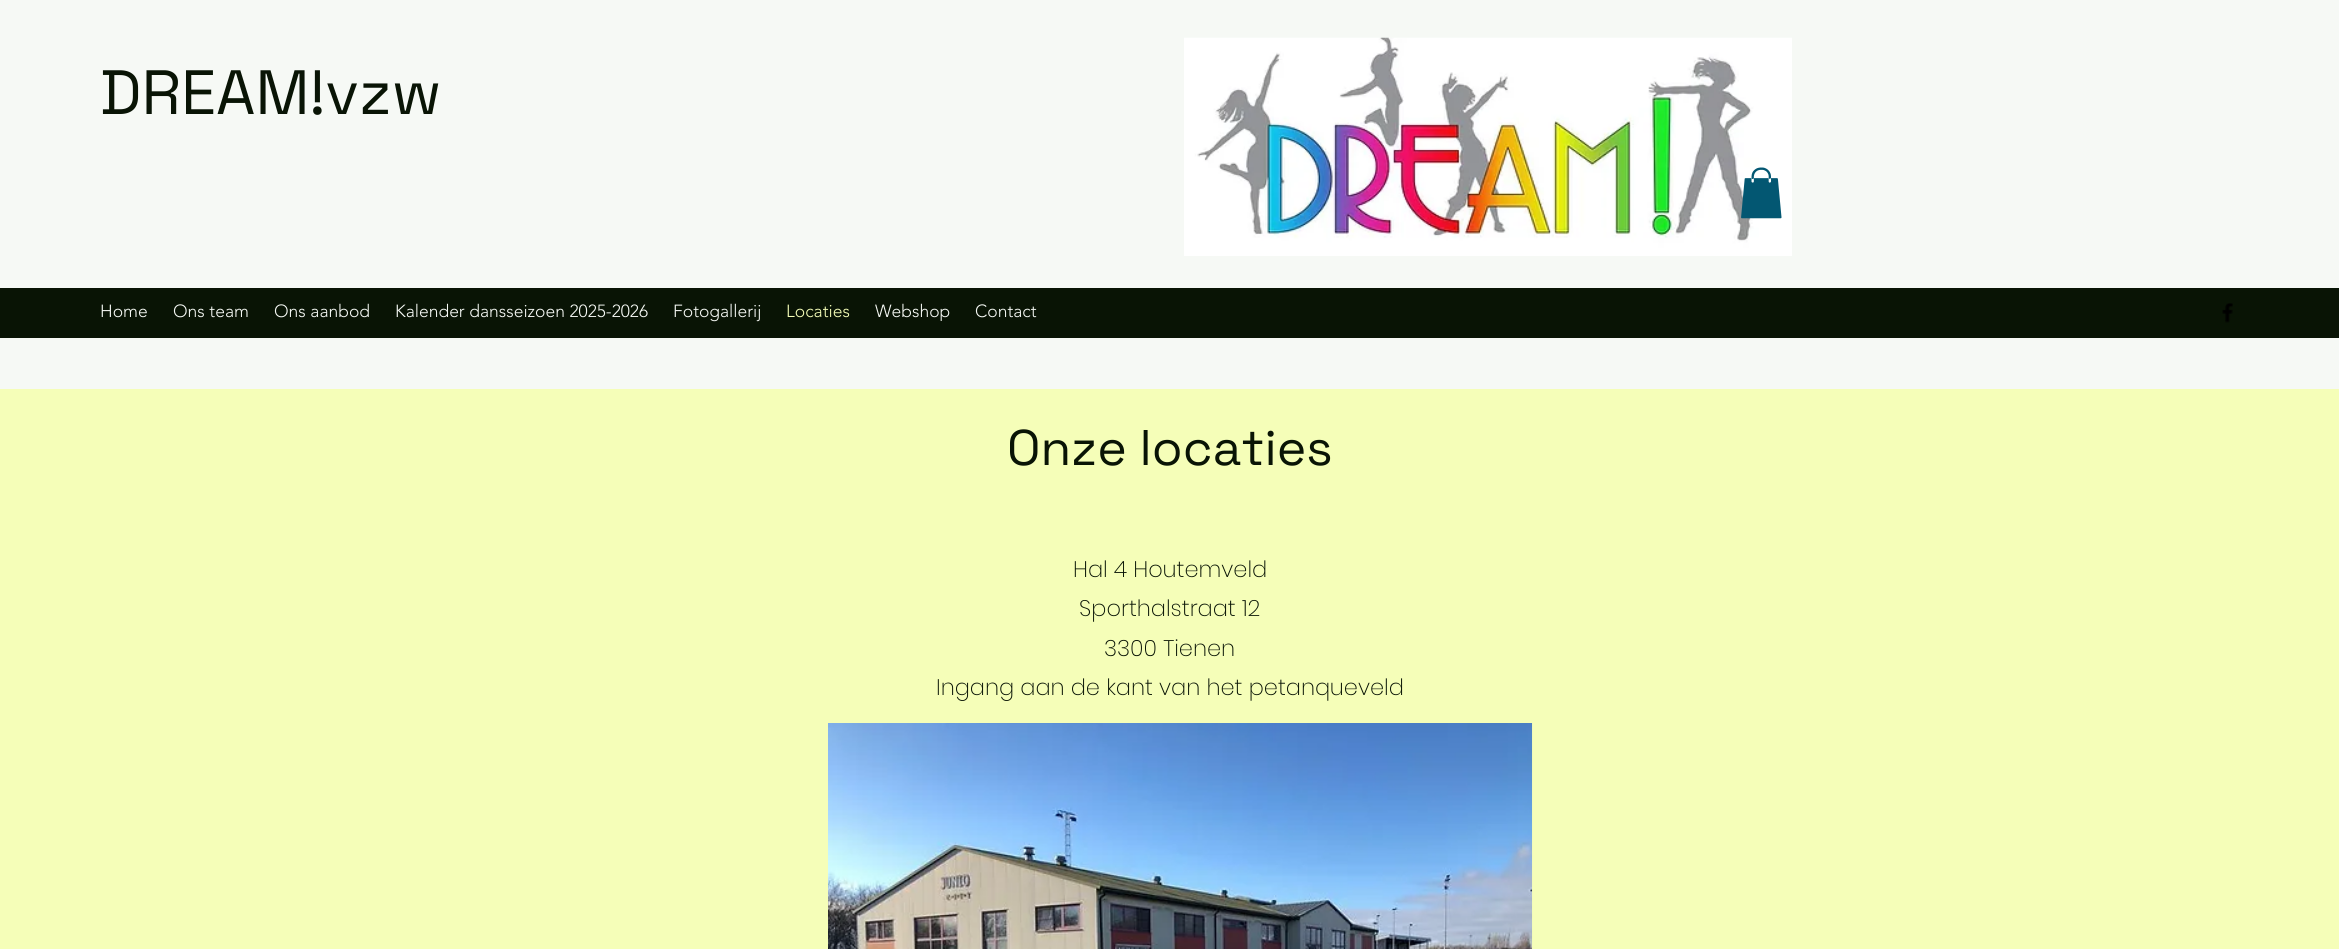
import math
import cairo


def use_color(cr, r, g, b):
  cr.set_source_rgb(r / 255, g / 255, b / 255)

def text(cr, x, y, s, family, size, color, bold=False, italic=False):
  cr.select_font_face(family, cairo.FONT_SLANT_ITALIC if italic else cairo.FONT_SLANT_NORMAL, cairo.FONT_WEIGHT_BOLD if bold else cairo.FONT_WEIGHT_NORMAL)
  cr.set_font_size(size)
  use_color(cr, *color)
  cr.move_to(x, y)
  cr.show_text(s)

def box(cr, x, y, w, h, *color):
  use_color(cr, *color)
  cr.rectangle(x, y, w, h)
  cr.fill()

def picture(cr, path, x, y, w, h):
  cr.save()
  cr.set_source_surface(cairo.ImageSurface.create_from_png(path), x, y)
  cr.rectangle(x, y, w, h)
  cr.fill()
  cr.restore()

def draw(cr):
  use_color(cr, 246, 249, 245)
  cr.paint()
  picture(cr, "img_01.png", 1184, 37, 608, 219)
  picture(cr, "img_02.png", 1741, 167, 41, 52)
  box(cr, 0, 288, 2339, 50, 9, 20, 5)
  picture(cr, "img_03.png", 2222, 303, 11, 20)
  box(cr, 0, 389, 2339, 560, 245, 254, 184)
  picture(cr, "img_04.png", 828, 723, 705, 226)
  text(cr, 100, 114, "DREAM!vzw", "Space Grotesk", 62.5, (9, 20, 5))
  text(cr, 100, 317, "Home", "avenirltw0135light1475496 Light", 17.5, (246, 249, 245))
  text(cr, 173, 317, "Ons team", "avenirltw0135light1475496 Light", 17.5, (246, 249, 245))
  text(cr, 274, 317, "Ons aanbod", "avenirltw0135light1475496 Light", 17.5, (246, 249, 245))
  text(cr, 395, 317, "Kalender dansseizoen 2025-2026", "avenirltw0135light1475496 Light", 17.5, (246, 249, 245))
  text(cr, 673, 317, "Fotogallerij", "avenirltw0135light1475496 Light", 17.5, (246, 249, 245))
  text(cr, 786, 317, "Locaties", "avenirltw0135light1475496 Light", 17.5, (245, 254, 184))
  text(cr, 875, 317, "Webshop", "avenirltw0135light1475496 Light", 17.5, (246, 249, 245))
  text(cr, 975, 317, "Contact", "avenirltw0135light1475496 Light", 17.5, (246, 249, 245))
  text(cr, 1007, 465, "Onze locaties", "Space Grotesk", 50, (9, 20, 5))
  text(cr, 1073, 577, "Hal 4 Houtemveld", "Poppins ExtraLight", 22.5, (9, 20, 5))
  text(cr, 1079, 616, "Sporthalstraat 12", "Poppins ExtraLight", 22.5, (9, 20, 5))
  text(cr, 1104, 656, "3300 Tienen", "Poppins ExtraLight", 22.5, (9, 20, 5))
  text(cr, 936, 695, "Ingang aan de kant van het petanqueveld", "Poppins ExtraLight", 22.5, (9, 20, 5))


surface = cairo.ImageSurface(cairo.FORMAT_RGB24, 2339, 949)
cr = cairo.Context(surface)
options = cairo.FontOptions()
options.set_hint_metrics(cairo.HINT_METRICS_OFF)
options.set_hint_style(cairo.HINT_STYLE_NONE)
cr.set_font_options(options)
cr.set_miter_limit(4)
draw(cr)
surface.write_to_png("out.png")
